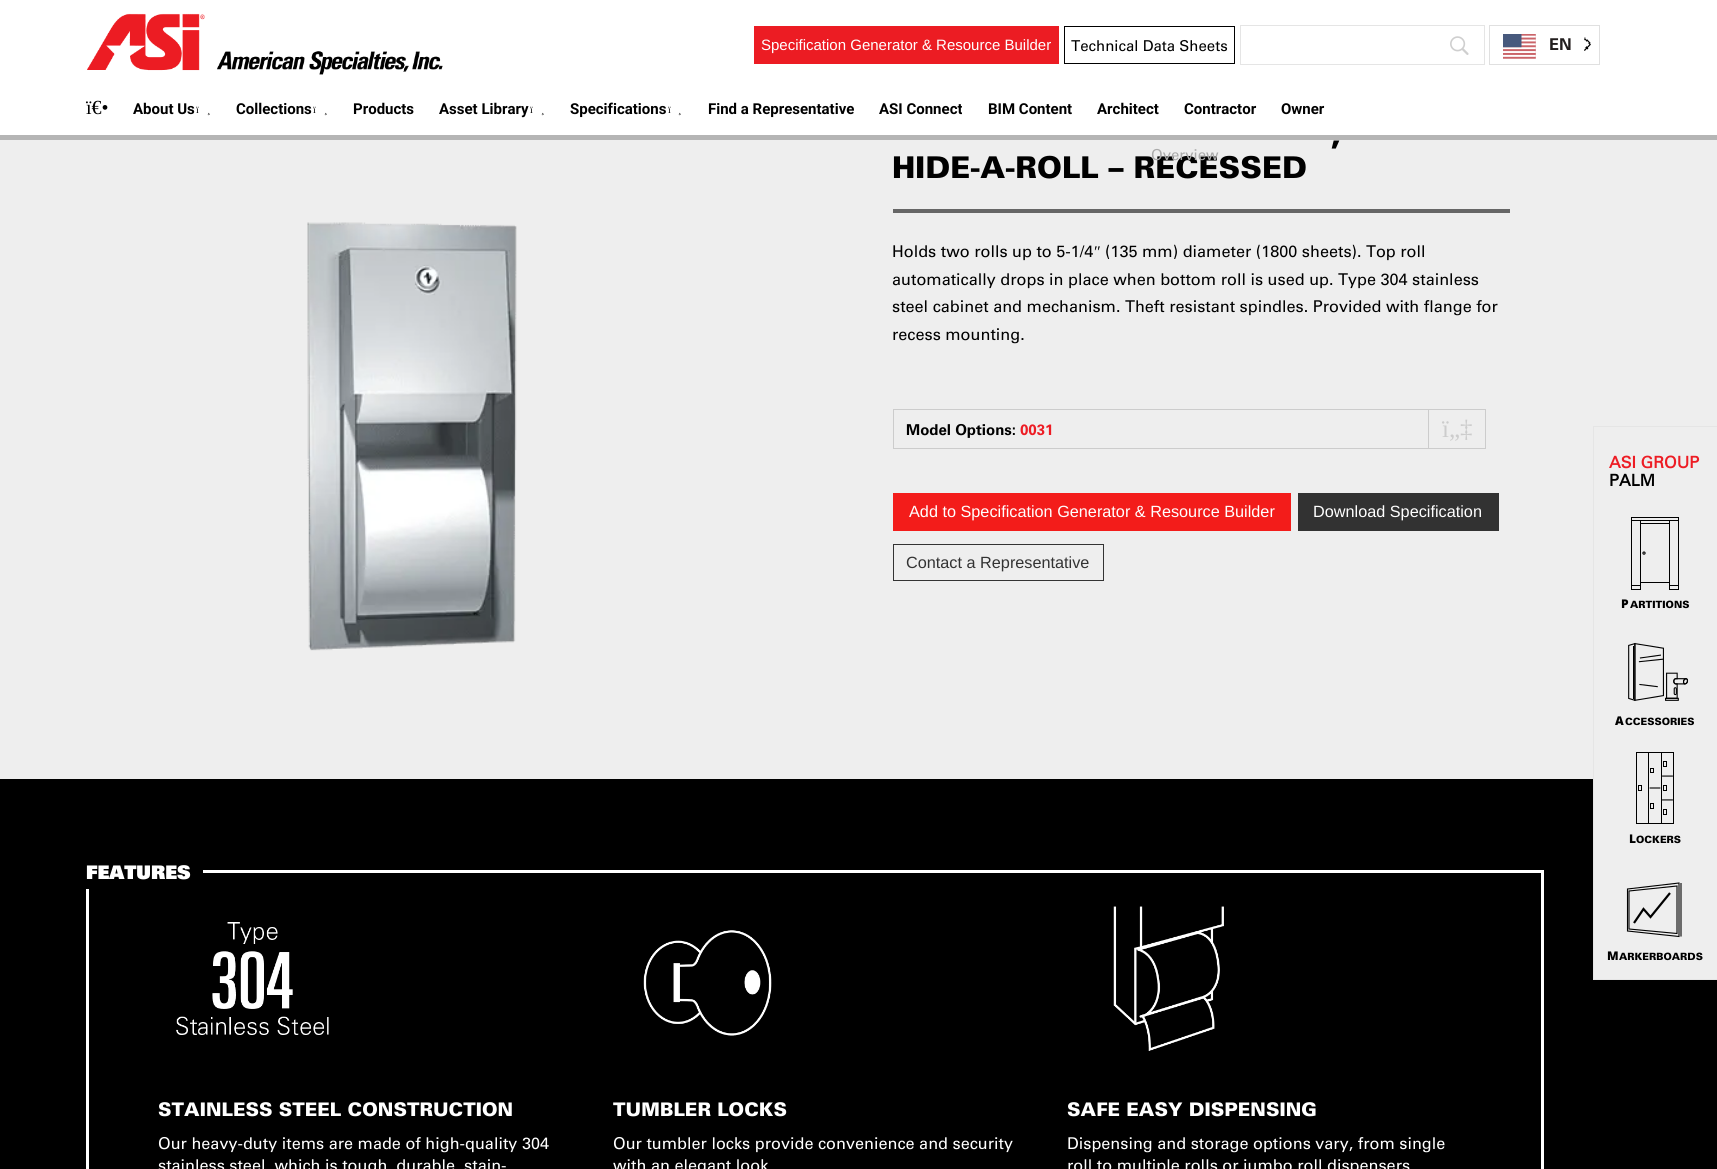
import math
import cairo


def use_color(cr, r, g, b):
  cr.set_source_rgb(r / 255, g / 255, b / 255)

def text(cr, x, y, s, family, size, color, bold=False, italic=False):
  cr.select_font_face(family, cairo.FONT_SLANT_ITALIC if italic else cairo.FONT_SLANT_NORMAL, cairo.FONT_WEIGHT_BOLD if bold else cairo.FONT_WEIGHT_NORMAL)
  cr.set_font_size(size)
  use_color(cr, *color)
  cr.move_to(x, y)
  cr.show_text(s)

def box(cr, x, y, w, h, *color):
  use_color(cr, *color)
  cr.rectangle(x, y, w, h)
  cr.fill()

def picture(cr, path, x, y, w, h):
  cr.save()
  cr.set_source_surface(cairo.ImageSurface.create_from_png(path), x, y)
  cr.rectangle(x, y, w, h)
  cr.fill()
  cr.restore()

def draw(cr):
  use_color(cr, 238, 238, 238)
  cr.paint()
  box(cr, 0, 0, 1717, 135, 255, 255, 255)
  picture(cr, "img_01.png", 87, 13, 356, 62)
  box(cr, 754, 26, 305, 38, 236, 28, 35)
  cr.rectangle(1064.5, 26.5, 170, 37)
  use_color(cr, 0, 0, 0)
  cr.set_line_width(1)
  cr.stroke()
  picture(cr, "img_02.png", 1450, 36, 19, 19)
  cr.rectangle(1240.5, 25.5, 244, 39)
  use_color(cr, 229, 229, 229)
  cr.stroke()
  cr.rectangle(1489.5, 25.5, 110, 39)
  use_color(cr, 224, 224, 224)
  cr.stroke()
  picture(cr, "img_03.png", 1503, 34, 33, 25)
  picture(cr, "img_04.png", 1584, 37, 7, 14)
  box(cr, 0, 135, 1717, 5, 181, 181, 181)
  picture(cr, "img_05.png", 307, 222, 210, 429)
  box(cr, 893, 209, 617, 4, 102, 102, 102)
  cr.rectangle(893.5, 409.5, 592, 39)
  use_color(cr, 204, 204, 204)
  cr.stroke()
  box(cr, 1428, 410, 1, 38, 204, 204, 204)
  box(cr, 893, 493, 398, 38, 243, 28, 26)
  box(cr, 1298, 493, 201, 38, 50, 50, 50)
  cr.rectangle(893.5, 544.5, 210, 36)
  use_color(cr, 51, 51, 51)
  cr.stroke()
  box(cr, 0, 779, 1717, 390, 0, 0, 0)
  box(cr, 1594, 779, 123, 200, 238, 238, 238)
  cr.rectangle(1593.5, 426.5, 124, 553)
  use_color(cr, 229, 229, 229)
  cr.stroke()
  cr.rectangle(1631.5, 520.5, 9, 69)
  use_color(cr, 0, 0, 0)
  cr.stroke()
  cr.rectangle(1669.5, 520.5, 9, 69)
  cr.stroke()
  cr.rectangle(1631.5, 585.5, 9, 4)
  cr.stroke()
  cr.rectangle(1669.5, 585.5, 9, 4)
  cr.stroke()
  cr.rectangle(1640.5, 523.5, 29, 59)
  cr.stroke()
  cr.rectangle(1631.5, 517.5, 47, 3)
  cr.stroke()
  cr.arc(1644, 553.1, 1.1, 0, 2 * math.pi)
  cr.set_line_width(1.1)
  cr.stroke()
  picture(cr, "img_06.png", 1628, 642, 61, 59)
  picture(cr, "img_07.png", 1636, 752, 38, 72)
  cr.new_path()
  cr.move_to(1627.5, 931)
  cr.line_to(1679, 936.5)
  cr.line_to(1679, 883)
  cr.line_to(1627.5, 889)
  cr.close_path()
  cr.move_to(1629, 929)
  cr.line_to(1677, 933.5)
  cr.line_to(1677, 886)
  cr.line_to(1629, 891)
  cr.close_path()
  cr.move_to(1681, 936.5)
  cr.line_to(1681, 883)
  cr.stroke()
  cr.new_path()
  cr.move_to(1634, 923)
  cr.line_to(1643.5, 909)
  cr.line_to(1650.5, 917)
  cr.line_to(1670, 893)
  cr.set_line_width(2.2)
  cr.stroke()
  cr.rectangle(87.5, 871.5, 1455, 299)
  use_color(cr, 255, 255, 255)
  cr.set_line_width(3)
  cr.stroke()
  box(cr, 86, 870, 117, 19, 0, 0, 0)
  picture(cr, "img_08.png", 176, 922, 153, 113)
  picture(cr, "img_09.png", 643, 930, 129, 106)
  picture(cr, "img_10.png", 1113, 906, 111, 145)
  text(cr, 761, 50, "Specification Generator & Resource Builder", "Liberation Sans", 15, (255, 255, 255))
  text(cr, 1071, 51, "Technical Data Sheets", "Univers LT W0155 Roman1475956", 15, (0, 0, 0))
  text(cr, 1549, 50, "EN", "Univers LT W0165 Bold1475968", 16.25, (34, 30, 30), bold=True)
  text(cr, 86, 114, "ï€•", "Liberation Serif", 20, (0, 0, 0))
  text(cr, 133, 114, "About Us", "Roboto", 15, (0, 0, 0), bold=True)
  text(cr, 196, 113, "ï", "Liberation Serif", 10, (0, 0, 0))
  text(cr, 207, 113, "¸", "Liberation Serif", 10, (0, 0, 0))
  text(cr, 236, 114, "Collections", "Roboto", 15, (0, 0, 0), bold=True)
  text(cr, 313, 113, "ï", "Liberation Serif", 10, (0, 0, 0))
  text(cr, 324, 113, "¸", "Liberation Serif", 10, (0, 0, 0))
  text(cr, 353, 114, "Products", "Roboto", 15, (0, 0, 0), bold=True)
  text(cr, 439, 114, "Asset Library", "Roboto", 15, (0, 0, 0), bold=True)
  text(cr, 530, 113, "ï", "Liberation Serif", 10, (0, 0, 0))
  text(cr, 541, 113, "¸", "Liberation Serif", 10, (0, 0, 0))
  text(cr, 570, 114, "Specifications", "Roboto", 15, (0, 0, 0), bold=True)
  text(cr, 668, 113, "ï", "Liberation Serif", 10, (0, 0, 0))
  text(cr, 678, 113, "¸", "Liberation Serif", 10, (0, 0, 0))
  text(cr, 708, 114, "Find a Representative", "Roboto", 15, (0, 0, 0), bold=True)
  text(cr, 879, 114, "ASI Connect", "Roboto", 15, (0, 0, 0), bold=True)
  text(cr, 988, 114, "BIM Content", "Roboto", 15, (0, 0, 0), bold=True)
  text(cr, 1097, 114, "Architect", "Roboto", 15, (0, 0, 0), bold=True)
  text(cr, 1184, 114, "Contractor", "Roboto", 15, (0, 0, 0), bold=True)
  text(cr, 1281, 114, "Owner", "Roboto", 15, (0, 0, 0), bold=True)
  text(cr, 1331, 145, ",", "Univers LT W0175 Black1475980 Black", 30, (0, 0, 0))
  text(cr, 892, 178, "HIDE-A-ROLL – RECESSED", "Univers LT W0175 Black1475980 Black", 30, (0, 0, 0))
  text(cr, 1151, 160, "Overview", "Univers LT W0155 Roman1475956", 15, (170, 170, 170))
  text(cr, 892, 257, "Holds two rolls up to 5-1/4", "Univers LT W0155 Roman1475956", 16.25, (0, 0, 0))
  text(cr, 1094, 257, "″", "Liberation Serif", 16.25, (0, 0, 0))
  text(cr, 1105, 257, "(135 mm) diameter (1800 sheets). Top roll", "Univers LT W0155 Roman1475956", 16.25, (0, 0, 0))
  text(cr, 892, 285, "automatically drops in place when bottom roll is used up. Type 304 stainless", "Univers LT W0155 Roman1475956", 16.25, (0, 0, 0))
  text(cr, 892, 312, "steel cabinet and mechanism. Theft resistant spindles. Provided with flange for", "Univers LT W0155 Roman1475956", 16.25, (0, 0, 0))
  text(cr, 892, 340, "recess mounting.", "Univers LT W0155 Roman1475956", 16.25, (0, 0, 0))
  text(cr, 906, 435, "Model Options:", "Univers LT W0165 Bold1475968", 15, (0, 0, 0), bold=True)
  text(cr, 1020, 435, "0031", "Univers LT W0165 Bold1475968", 15, (237, 28, 36), bold=True)
  text(cr, 1442, 437, "ï„‡", "Liberation Serif", 25, (204, 204, 204))
  text(cr, 909, 517, "Add to Specification Generator & Resource Builder", "Liberation Sans", 16.25, (255, 255, 255))
  text(cr, 1313, 517, "Download Specification", "Liberation Sans", 16.25, (255, 255, 255))
  text(cr, 906, 568, "Contact a Representative", "Liberation Sans", 16.25, (51, 51, 51))
  text(cr, 1609, 468, "ASI GROUP", "Univers LT W0155 Roman1475956", 16.25, (237, 28, 36), bold=True)
  text(cr, 1609, 486, "PALM", "Univers LT W0155 Roman1475956", 16.25, (0, 0, 0), bold=True)
  text(cr, 1621, 608, "P", "Noto Sans Black", 12, (0, 0, 0))
  text(cr, 1630, 608, "ARTITIONS", "Univers LT W0175 Black1475980 Black", 10, (0, 0, 0))
  text(cr, 1615, 725, "A", "Noto Sans Black", 12, (0, 0, 0))
  text(cr, 1625, 725, "CCESSORIES", "Univers LT W0175 Black1475980 Black", 10, (0, 0, 0))
  text(cr, 1629, 843, "L", "Noto Sans Black", 12, (0, 0, 0))
  text(cr, 1636, 843, "OCKERS", "Univers LT W0175 Black1475980 Black", 10, (0, 0, 0))
  text(cr, 1607, 960, "M", "Noto Sans Black", 12, (0, 0, 0))
  text(cr, 1619, 960, "ARKERBOARDS", "Univers LT W0175 Black1475980 Black", 10, (0, 0, 0))
  text(cr, 86, 879, "FEATURES", "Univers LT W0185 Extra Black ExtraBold", 18.75, (255, 255, 255))
  text(cr, 158, 1116, "STAINLESS STEEL CONSTRUCTION", "Univers LT W0175 Black1475980 Black", 18.75, (255, 255, 255))
  text(cr, 158, 1149, "Our heavy-duty items are made of high-quality 304", "Univers LT W0155 Roman1475956", 16.25, (255, 255, 255))
  text(cr, 158, 1171, "stainless steel, which is tough, durable, stain-", "Univers LT W0155 Roman1475956", 16.25, (255, 255, 255))
  text(cr, 613, 1116, "TUMBLER LOCKS", "Univers LT W0175 Black1475980 Black", 18.75, (255, 255, 255))
  text(cr, 613, 1149, "Our tumbler locks provide convenience and security", "Univers LT W0155 Roman1475956", 16.25, (255, 255, 255))
  text(cr, 613, 1171, "with an elegant look", "Univers LT W0155 Roman1475956", 16.25, (255, 255, 255))
  text(cr, 1067, 1116, "SAFE EASY DISPENSING", "Univers LT W0175 Black1475980 Black", 18.75, (255, 255, 255))
  text(cr, 1067, 1149, "Dispensing and storage options vary, from single", "Univers LT W0155 Roman1475956", 16.25, (255, 255, 255))
  text(cr, 1067, 1171, "roll to multiple rolls or jumbo roll dispensers", "Univers LT W0155 Roman1475956", 16.25, (255, 255, 255))


surface = cairo.ImageSurface(cairo.FORMAT_RGB24, 1717, 1169)
cr = cairo.Context(surface)
options = cairo.FontOptions()
options.set_hint_metrics(cairo.HINT_METRICS_OFF)
options.set_hint_style(cairo.HINT_STYLE_NONE)
cr.set_font_options(options)
cr.set_miter_limit(4)
draw(cr)
surface.write_to_png("out.png")
